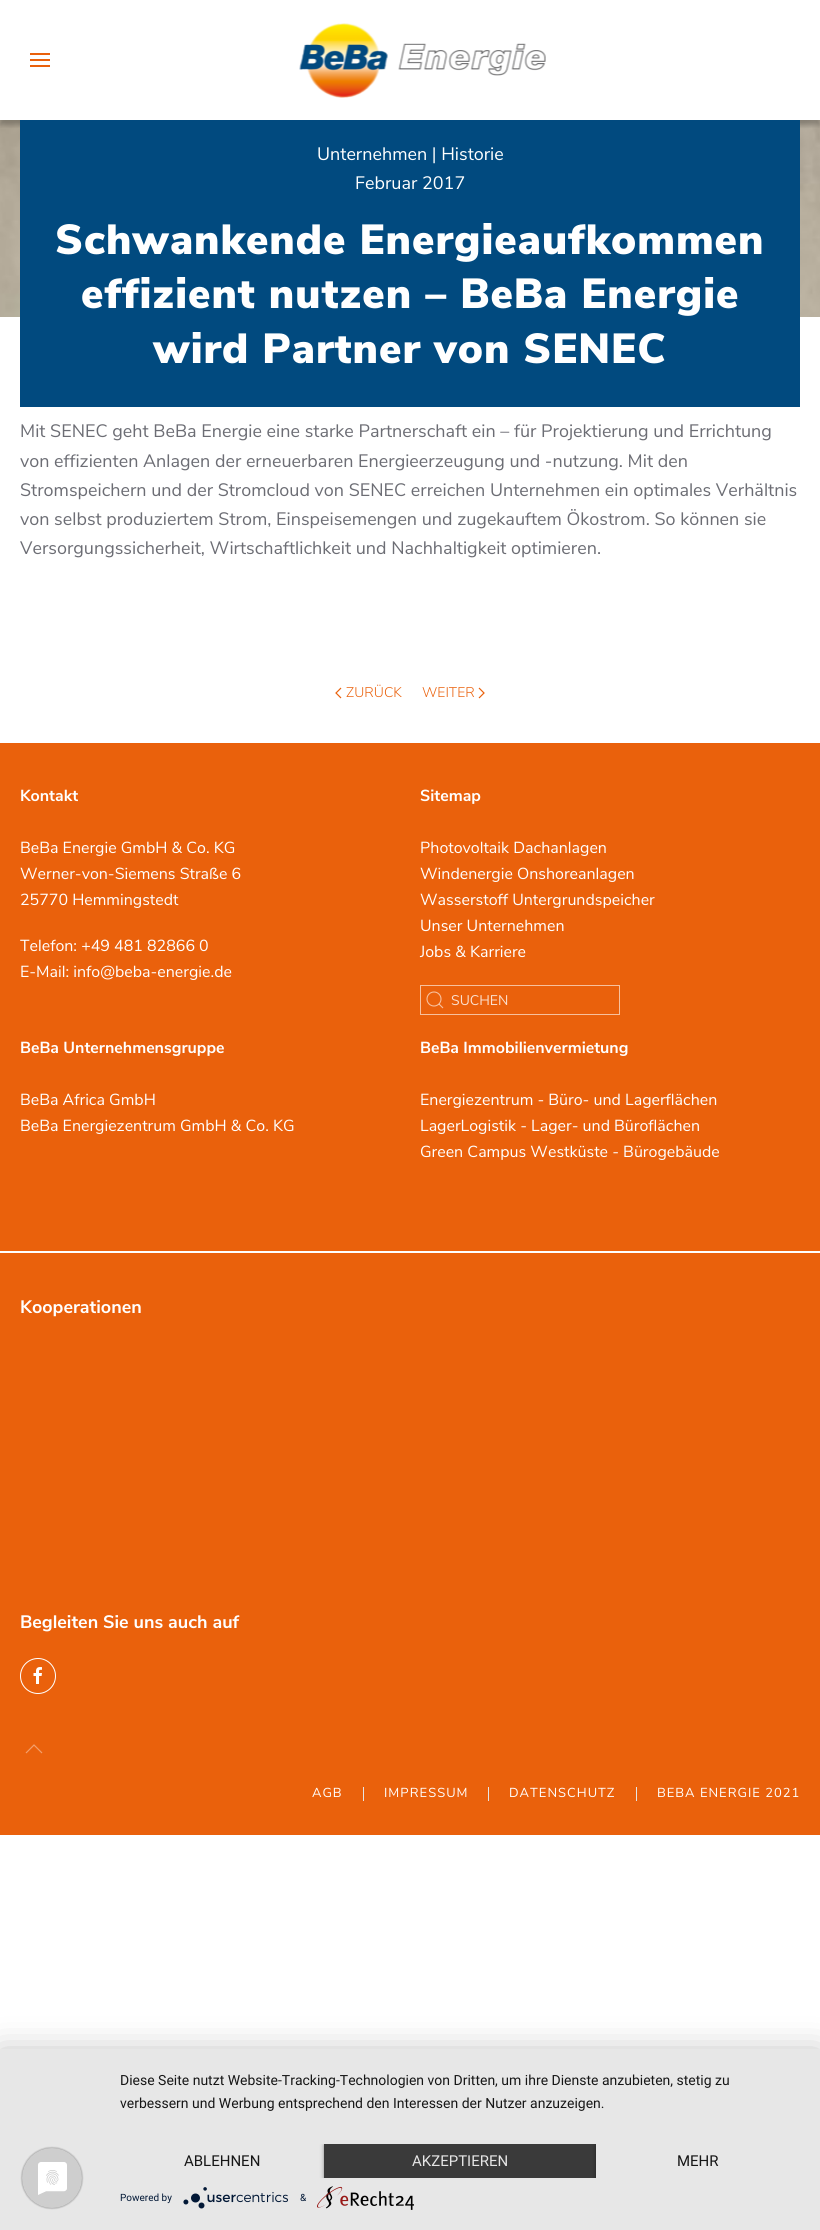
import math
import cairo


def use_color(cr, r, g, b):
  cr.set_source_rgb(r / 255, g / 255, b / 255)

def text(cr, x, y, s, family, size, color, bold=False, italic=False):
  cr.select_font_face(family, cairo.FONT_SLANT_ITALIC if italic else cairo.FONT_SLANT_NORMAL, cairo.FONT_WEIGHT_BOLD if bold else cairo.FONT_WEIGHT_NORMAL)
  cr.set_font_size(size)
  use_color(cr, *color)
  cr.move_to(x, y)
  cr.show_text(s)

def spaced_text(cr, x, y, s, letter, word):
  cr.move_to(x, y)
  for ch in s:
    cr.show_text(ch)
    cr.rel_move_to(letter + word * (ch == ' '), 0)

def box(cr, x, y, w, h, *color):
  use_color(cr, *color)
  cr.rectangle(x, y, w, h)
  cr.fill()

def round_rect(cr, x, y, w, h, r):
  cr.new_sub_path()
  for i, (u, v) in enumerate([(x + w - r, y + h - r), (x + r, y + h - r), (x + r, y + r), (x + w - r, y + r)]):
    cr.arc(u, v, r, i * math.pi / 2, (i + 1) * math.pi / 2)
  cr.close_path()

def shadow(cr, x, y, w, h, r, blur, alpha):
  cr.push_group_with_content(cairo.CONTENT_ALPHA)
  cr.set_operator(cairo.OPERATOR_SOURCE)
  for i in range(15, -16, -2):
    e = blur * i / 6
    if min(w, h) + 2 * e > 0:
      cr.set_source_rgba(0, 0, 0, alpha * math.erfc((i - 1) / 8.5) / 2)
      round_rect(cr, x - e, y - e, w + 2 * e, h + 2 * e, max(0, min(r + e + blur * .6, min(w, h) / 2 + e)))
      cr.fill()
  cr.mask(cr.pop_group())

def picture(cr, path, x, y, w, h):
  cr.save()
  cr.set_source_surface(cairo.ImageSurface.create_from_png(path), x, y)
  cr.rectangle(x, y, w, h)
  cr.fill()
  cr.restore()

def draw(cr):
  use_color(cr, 255, 255, 255)
  cr.paint()
  picture(cr, "img_02.png", 0, 120, 820, 197)
  cr.save()
  cr.rectangle(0, 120, 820, 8)
  cr.clip()
  use_color(cr, 0, 0, 0)
  shadow(cr, 0, 5, 820, 120, 0, 2.5, 0.24)
  cr.restore()
  box(cr, 30, 53, 20, 2, 234, 97, 12)
  box(cr, 30, 59, 20, 2, 234, 97, 12)
  box(cr, 30, 65, 20, 2, 234, 97, 12)
  picture(cr, "img_01.png", 299, 23, 247, 75)
  box(cr, 20, 120, 780, 287, 1, 74, 127)
  cr.new_path()
  cr.move_to(341, 688)
  cr.line_to(336, 693)
  cr.line_to(341, 698)
  use_color(cr, 234, 97, 12)
  cr.set_line_width(1.2)
  cr.stroke()
  cr.new_path()
  cr.move_to(479, 688)
  cr.line_to(484, 693)
  cr.line_to(479, 698)
  cr.stroke()
  box(cr, 0, 743, 820, 508, 234, 97, 12)
  cr.rectangle(420.5, 985.5, 199, 29)
  use_color(cr, 247, 192, 158)
  cr.set_line_width(1)
  cr.stroke()
  cr.arc(434, 999, 7, 0, 2 * math.pi)
  cr.set_line_width(1.1)
  cr.stroke()
  cr.new_path()
  cr.move_to(439, 1004)
  cr.line_to(443, 1008)
  cr.close_path()
  cr.set_source_rgba(1, 1, 1, 0.6)
  cr.stroke()
  box(cr, 0, 1253, 820, 582, 234, 97, 12)
  cr.arc(38, 1676, 17.5, 0, 2 * math.pi)
  use_color(cr, 255, 255, 255)
  cr.set_line_width(1)
  cr.stroke()
  picture(cr, "img_03.png", 33, 1667, 9, 17)
  cr.new_path()
  cr.move_to(26, 1753)
  cr.line_to(34, 1745)
  cr.line_to(42, 1753)
  use_color(cr, 242, 160, 109)
  cr.set_line_width(1.2)
  cr.stroke()
  box(cr, 363, 1787, 1, 14, 229, 229, 229)
  box(cr, 488, 1787, 1, 14, 229, 229, 229)
  box(cr, 636, 1787, 1, 14, 229, 229, 229)
  use_color(cr, 0, 0, 0)
  shadow(cr, 0, 2055, 820, 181, 0, 18, 0.3)
  box(cr, 0, 2049, 820, 181, 231, 231, 231)
  picture(cr, "img_04.png", 20, 2146, 64, 64)
  cr.save()
  cr.rectangle(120, 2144, 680, 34)
  cr.clip()
  use_color(cr, 0, 0, 0)
  shadow(cr, 324, 2145, 272, 34, 0, 2, 0.4)
  cr.restore()
  box(cr, 324, 2144, 272, 34, 58, 58, 58)
  cr.save()
  cr.rectangle(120, 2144, 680, 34)
  cr.clip()
  use_color(cr, 0, 0, 0)
  shadow(cr, 596, 2145, 204, 34, 0, 2, 0.4)
  cr.restore()
  box(cr, 596, 2144, 204, 34, 231, 231, 231)
  picture(cr, "img_05.png", 183, 2187, 105, 22)
  picture(cr, "img_06.png", 317, 2186, 97, 24)
  text(cr, 317, 160, "Unternehmen | Historie", "Nunito Sans", 18, (255, 255, 255))
  text(cr, 355, 189, "Februar 2017", "Nunito Sans", 18, (255, 255, 255))
  cr.select_font_face("Nunito Sans Black")
  cr.set_font_size(42)
  spaced_text(cr, 55, 254, "Schwankende Energieaufkommen", 1, 0)
  spaced_text(cr, 81, 308, "effizient nutzen – BeBa Energie", 1, 0)
  spaced_text(cr, 153, 363, "wird Partner von SENEC", 1, 0)
  text(cr, 20, 437, "Mit SENEC geht BeBa Energie eine starke Partnerschaft ein – für Projektierung und Errichtung", "Nunito Sans", 18, (108, 109, 116))
  text(cr, 20, 467, "von effizienten Anlagen der erneuerbaren Energieerzeugung und -nutzung. Mit den", "Nunito Sans", 18, (108, 109, 116))
  text(cr, 20, 496, "Stromspeichern und der Stromcloud von SENEC erreichen Unternehmen ein optimales Verhältnis", "Nunito Sans", 18, (108, 109, 116))
  text(cr, 20, 525, "von selbst produziertem Strom, Einspeisemengen und zugekauftem Ökostrom. So können sie", "Nunito Sans", 18, (108, 109, 116))
  text(cr, 20, 554, "Versorgungssicherheit, Wirtschaftlichkeit und Nachhaltigkeit optimieren.", "Nunito Sans", 18, (108, 109, 116))
  text(cr, 346, 697, "ZURÜCK", "Nunito Sans Light", 14, (234, 97, 12))
  text(cr, 422, 697, "WEITER", "Nunito Sans Light", 14, (234, 97, 12))
  text(cr, 20, 801, "Kontakt", "Nunito Sans", 16, (255, 255, 255), bold=True)
  text(cr, 20, 853, "BeBa Energie GmbH & Co. KG", "Nunito Sans", 16, (255, 255, 255))
  text(cr, 20, 879, "Werner-von-Siemens Straße 6", "Nunito Sans", 16, (255, 255, 255))
  text(cr, 20, 905, "25770 Hemmingstedt", "Nunito Sans", 16, (255, 255, 255))
  text(cr, 20, 951, "Telefon: +49 481 82866 0", "Nunito Sans", 16, (255, 255, 255))
  text(cr, 20, 977, "E-Mail: info@beba-energie.de", "Nunito Sans", 16, (255, 255, 255))
  text(cr, 420, 801, "Sitemap", "Nunito Sans", 16, (255, 255, 255), bold=True)
  text(cr, 420, 853, "Photovoltaik Dachanlagen", "Nunito Sans", 16, (255, 255, 255))
  text(cr, 420, 879, "Windenergie Onshoreanlagen", "Nunito Sans", 16, (255, 255, 255))
  text(cr, 420, 905, "Wasserstoff Untergrundspeicher", "Nunito Sans", 16, (255, 255, 255))
  text(cr, 420, 931, "Unser Unternehmen", "Nunito Sans", 16, (255, 255, 255))
  text(cr, 420, 957, "Jobs & Karriere", "Nunito Sans", 16, (255, 255, 255))
  text(cr, 451, 1005, "SUCHEN", "Nunito Sans", 14, (251, 223, 206))
  text(cr, 20, 1053, "BeBa Unternehmensgruppe", "Nunito Sans", 16, (255, 255, 255), bold=True)
  text(cr, 20, 1105, "BeBa Africa GmbH", "Nunito Sans", 16, (255, 255, 255))
  text(cr, 20, 1131, "BeBa Energiezentrum GmbH & Co. KG", "Nunito Sans", 16, (255, 255, 255))
  text(cr, 420, 1053, "BeBa Immobilienvermietung", "Nunito Sans", 16, (255, 255, 255), bold=True)
  text(cr, 420, 1105, "Energiezentrum - Büro- und Lagerflächen", "Nunito Sans", 16, (255, 255, 255))
  text(cr, 420, 1131, "LagerLogistik - Lager- und Büroflächen", "Nunito Sans", 16, (255, 255, 255))
  text(cr, 420, 1157, "Green Campus Westküste - Bürogebäude", "Nunito Sans", 16, (255, 255, 255))
  text(cr, 20, 1313, "Kooperationen", "Nunito Sans", 18, (255, 255, 255), bold=True)
  text(cr, 20, 1628, "Begleiten Sie uns auch auf", "Nunito Sans", 18, (255, 255, 255), bold=True)
  cr.select_font_face("Nunito Sans")
  cr.set_font_size(13)
  spaced_text(cr, 312, 1797, "AGB", 1, 0)
  spaced_text(cr, 384, 1797, "IMPRESSUM", 1, 0)
  spaced_text(cr, 509, 1797, "DATENSCHUTZ", 1, 0)
  spaced_text(cr, 657, 1797, "BEBA ENERGIE 2021", 1, 0)
  text(cr, 120, 2085, "Diese Seite nutzt Website-Tracking-Technologien von Dritten, um ihre Dienste anzubieten, stetig zu", "Roboto", 14, (22, 22, 22))
  text(cr, 120, 2108, "verbessern und Werbung entsprechend den Interessen der Nutzer anzuzeigen.", "Roboto", 14, (22, 22, 22))
  text(cr, 184, 2166, "ABLEHNEN", "Roboto", 15, (22, 22, 22))
  text(cr, 412, 2166, "AKZEPTIEREN", "Roboto", 15, (230, 230, 230))
  text(cr, 677, 2166, "MEHR", "Roboto", 15, (22, 22, 22))
  text(cr, 120, 2201, "Powered by", "Roboto", 10, (2, 24, 54))
  text(cr, 300, 2201, "&", "Roboto", 10, (2, 24, 54))


surface = cairo.ImageSurface(cairo.FORMAT_RGB24, 820, 2230)
cr = cairo.Context(surface)
options = cairo.FontOptions()
options.set_hint_metrics(cairo.HINT_METRICS_OFF)
options.set_hint_style(cairo.HINT_STYLE_NONE)
cr.set_font_options(options)
cr.set_miter_limit(4)
draw(cr)
surface.write_to_png("out.png")
